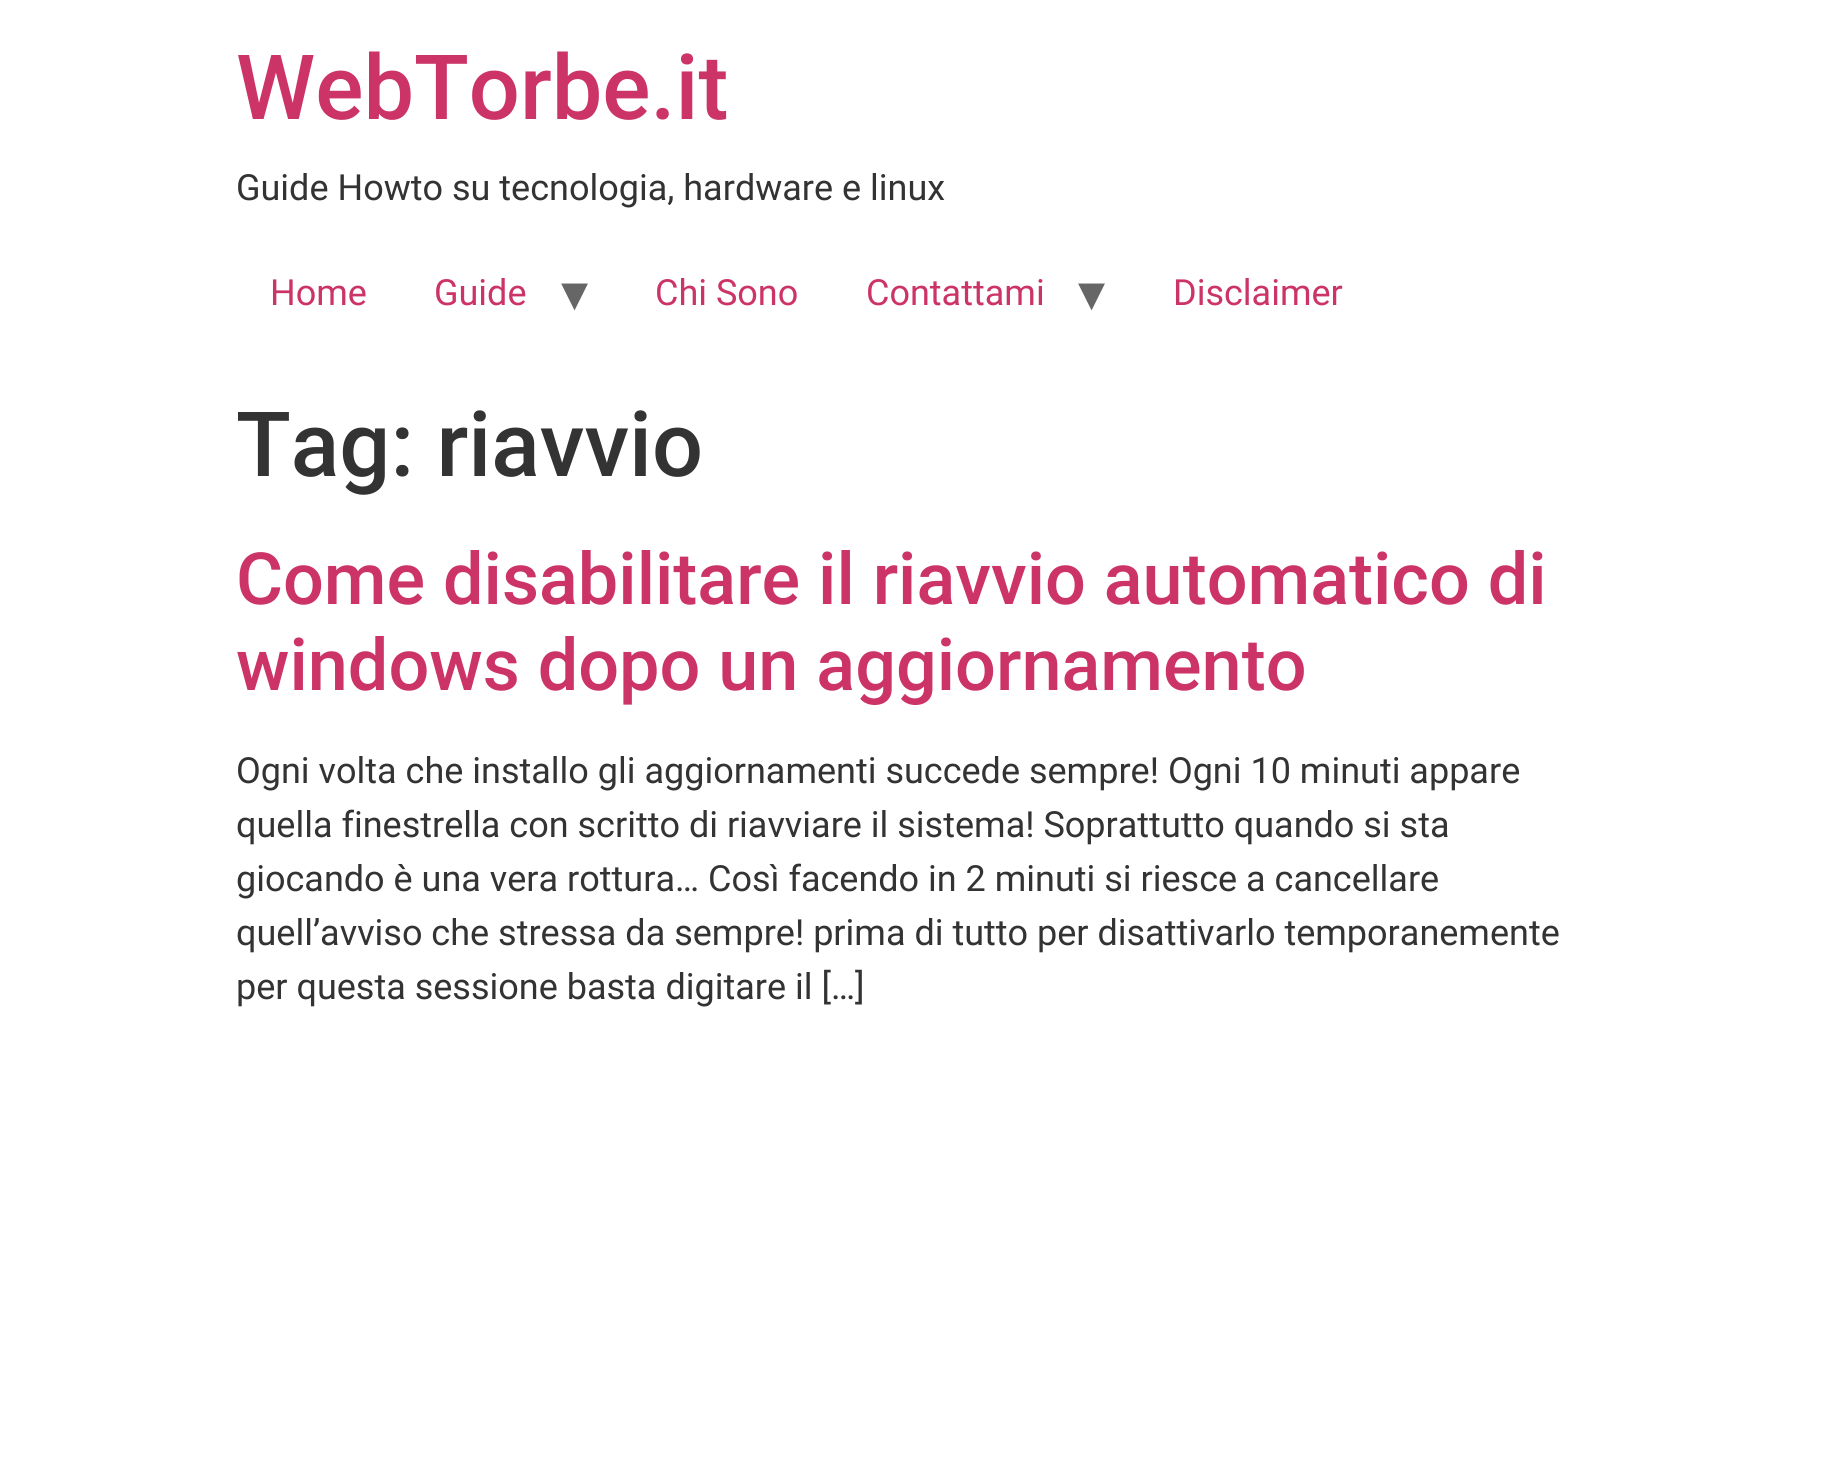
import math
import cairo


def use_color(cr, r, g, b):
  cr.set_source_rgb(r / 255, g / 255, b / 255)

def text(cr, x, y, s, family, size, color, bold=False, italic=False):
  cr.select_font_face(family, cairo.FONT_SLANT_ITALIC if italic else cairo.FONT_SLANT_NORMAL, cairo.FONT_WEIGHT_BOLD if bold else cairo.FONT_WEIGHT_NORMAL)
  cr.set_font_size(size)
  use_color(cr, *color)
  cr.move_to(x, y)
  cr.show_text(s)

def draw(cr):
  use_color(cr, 255, 255, 255)
  cr.paint()
  text(cr, 236, 119, "WebTorbe.it", "Roboto Medium", 90, (204, 51, 102))
  text(cr, 236, 200, "Guide Howto su tecnologia, hardware e linux", "Roboto", 36, (51, 51, 51))
  text(cr, 270, 305, "Home", "Roboto", 36, (204, 51, 102))
  text(cr, 434, 305, "Guide", "Roboto", 36, (204, 51, 102))
  text(cr, 561, 311, "▾", "DejaVu Sans", 54, (102, 102, 102))
  text(cr, 655, 305, "Chi Sono", "Roboto", 36, (204, 51, 102))
  text(cr, 866, 305, "Contattami", "Roboto", 36, (204, 51, 102))
  text(cr, 1078, 311, "▾", "DejaVu Sans", 54, (102, 102, 102))
  text(cr, 1173, 305, "Disclaimer", "Roboto", 36, (204, 51, 102))
  text(cr, 236, 476, "Tag: riavvio", "Roboto Medium", 90, (51, 51, 51))
  text(cr, 236, 604, "Come disabilitare il riavvio automatico di", "Roboto Medium", 72, (204, 51, 102))
  text(cr, 236, 690, "windows dopo un aggiornamento", "Roboto Medium", 72, (204, 51, 102))
  text(cr, 236, 783, "Ogni volta che installo gli aggiornamenti succede sempre! Ogni 10 minuti appare", "Roboto", 36, (51, 51, 51))
  text(cr, 236, 837, "quella finestrella con scritto di riavviare il sistema! Soprattutto quando si sta", "Roboto", 36, (51, 51, 51))
  text(cr, 236, 891, "giocando è una vera rottura… Così facendo in 2 minuti si riesce a cancellare", "Roboto", 36, (51, 51, 51))
  text(cr, 236, 945, "quell’avviso che stressa da sempre! prima di tutto per disattivarlo temporanemente", "Roboto", 36, (51, 51, 51))
  text(cr, 236, 999, "per questa sessione basta digitare il […]", "Roboto", 36, (51, 51, 51))


surface = cairo.ImageSurface(cairo.FORMAT_RGB24, 1821, 1475)
cr = cairo.Context(surface)
options = cairo.FontOptions()
options.set_hint_metrics(cairo.HINT_METRICS_OFF)
options.set_hint_style(cairo.HINT_STYLE_NONE)
cr.set_font_options(options)
cr.set_miter_limit(4)
draw(cr)
surface.write_to_png("out.png")
